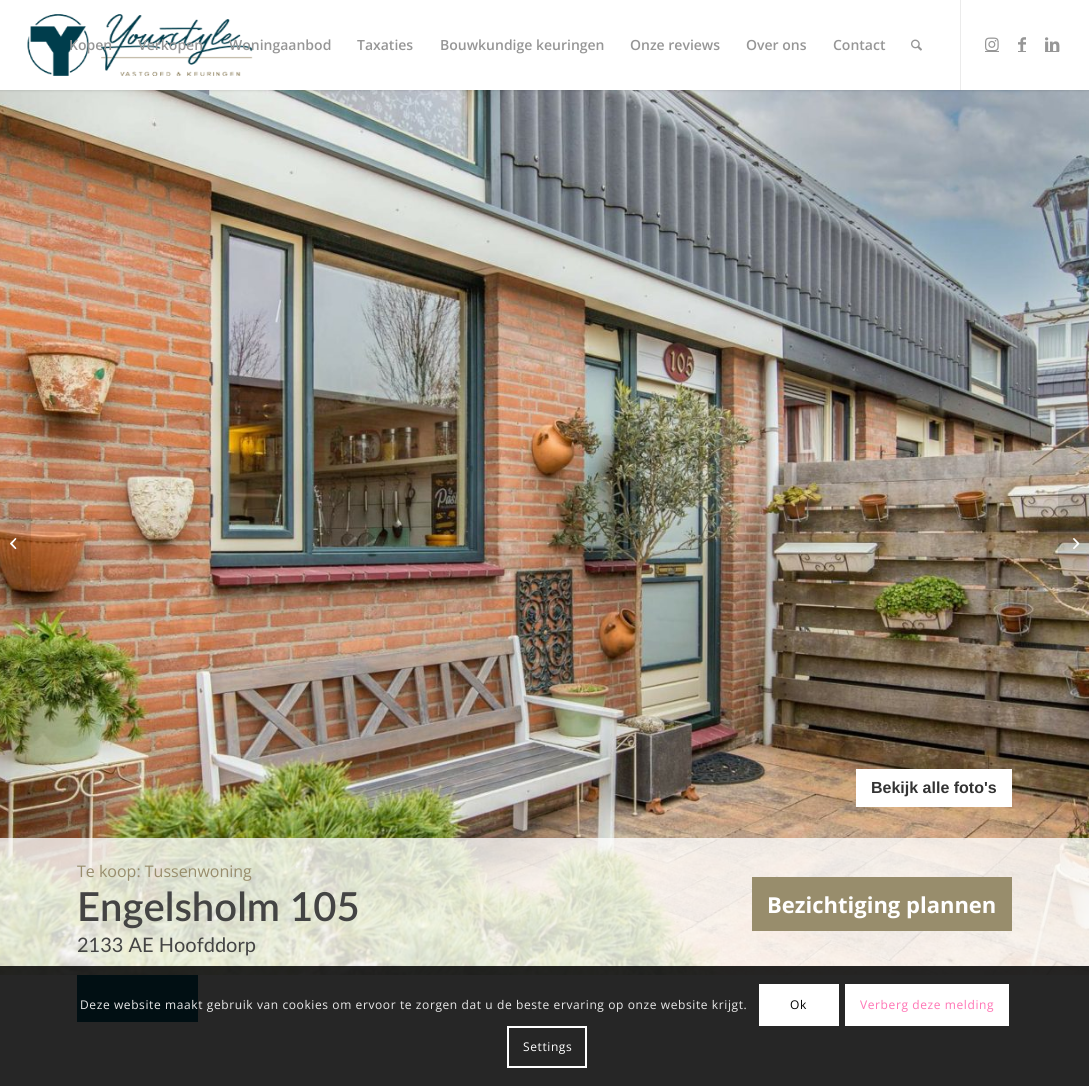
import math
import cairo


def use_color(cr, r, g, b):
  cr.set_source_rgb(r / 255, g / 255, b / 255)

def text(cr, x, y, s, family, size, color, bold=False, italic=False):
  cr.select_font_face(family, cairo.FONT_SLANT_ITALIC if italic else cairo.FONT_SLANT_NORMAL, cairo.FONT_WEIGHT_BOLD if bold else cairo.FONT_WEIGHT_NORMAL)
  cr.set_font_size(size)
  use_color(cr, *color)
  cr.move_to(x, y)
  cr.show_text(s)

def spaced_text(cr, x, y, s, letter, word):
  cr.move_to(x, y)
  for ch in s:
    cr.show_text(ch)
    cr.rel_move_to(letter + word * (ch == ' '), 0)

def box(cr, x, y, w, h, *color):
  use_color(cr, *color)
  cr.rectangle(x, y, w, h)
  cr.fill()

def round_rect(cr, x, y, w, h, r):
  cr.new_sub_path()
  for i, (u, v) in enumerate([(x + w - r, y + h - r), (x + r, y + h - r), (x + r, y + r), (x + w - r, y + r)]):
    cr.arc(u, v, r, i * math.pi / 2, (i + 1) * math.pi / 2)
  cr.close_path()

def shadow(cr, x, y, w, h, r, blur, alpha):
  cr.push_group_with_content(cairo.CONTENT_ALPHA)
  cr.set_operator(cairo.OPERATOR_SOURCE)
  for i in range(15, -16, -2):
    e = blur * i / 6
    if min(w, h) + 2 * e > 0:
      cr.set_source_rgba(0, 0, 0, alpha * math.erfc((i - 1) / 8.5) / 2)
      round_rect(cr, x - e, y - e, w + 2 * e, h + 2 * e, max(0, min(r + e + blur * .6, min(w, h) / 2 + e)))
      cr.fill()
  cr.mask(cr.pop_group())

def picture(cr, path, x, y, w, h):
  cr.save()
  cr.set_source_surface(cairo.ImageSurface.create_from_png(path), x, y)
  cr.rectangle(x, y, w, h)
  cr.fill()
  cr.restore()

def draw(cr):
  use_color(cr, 255, 255, 255)
  cr.paint()
  picture(cr, "img_08.png", 0, 90, 1089, 885)
  use_color(cr, 0, 0, 0)
  shadow(cr, -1, -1, 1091, 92, 0, 1, 0.1)
  box(cr, 0, 0, 1089, 90, 255, 255, 255)
  picture(cr, "img_01.png", 27, 14, 226, 62)
  box(cr, 960, 0, 1, 90, 235, 235, 235)
  picture(cr, "img_02.png", 911, 39, 11, 12)
  picture(cr, "img_03.png", 985, 37, 14, 14)
  box(cr, 985, 51, 14, 1, 150, 150, 150)
  picture(cr, "img_04.png", 1018, 37, 8, 14)
  box(cr, 1018, 51, 8, 1, 150, 150, 150)
  box(cr, 1045, 51, 14, 1, 150, 150, 150)
  picture(cr, "img_05.png", 1045, 37, 15, 15)
  cr.set_source_rgba(0, 0, 0, 0.1)
  cr.new_path()
  cr.move_to(0, 488)
  cr.line_to(27, 488)
  cr.curve_to(29, 488, 31, 490, 31, 492)
  cr.line_to(31, 594)
  cr.curve_to(31, 596, 29, 598, 27, 598)
  cr.line_to(0, 598)
  cr.close_path()
  cr.fill()
  picture(cr, "img_06.png", 10, 538, 7, 12)
  cr.new_path()
  cr.move_to(1062, 488)
  cr.line_to(1089, 488)
  cr.line_to(1089, 598)
  cr.line_to(1062, 598)
  cr.curve_to(1060, 598, 1058, 596, 1058, 594)
  cr.line_to(1058, 492)
  cr.curve_to(1058, 490, 1060, 488, 1062, 488)
  cr.close_path()
  cr.fill()
  picture(cr, "img_07.png", 1073, 538, 7, 11)
  cr.set_source_rgba(1, 1, 1, 0.77)
  cr.rectangle(0, 838, 1089, 137)
  cr.fill()
  box(cr, 856, 769, 156, 38, 255, 255, 255)
  box(cr, 752, 877, 260, 54, 152, 141, 108)
  box(cr, 77, 975, 121, 47, 10, 102, 127)
  cr.set_source_rgba(0, 0, 0, 0.85)
  cr.rectangle(0, 966, 1089, 120)
  cr.fill()
  box(cr, 759, 984, 80, 42, 255, 255, 255)
  box(cr, 845, 984, 164, 42, 255, 255, 255)
  cr.rectangle(508, 1027, 78, 40)
  cr.stroke()
  text(cr, 69, 50, "Kopen", "Open Sans SemiBold", 14, (150, 150, 150))
  text(cr, 138, 50, "Verkopen", "Open Sans SemiBold", 14, (150, 150, 150))
  text(cr, 229, 50, "Woningaanbod", "Open Sans SemiBold", 14, (150, 150, 150))
  text(cr, 357, 50, "Taxaties", "Open Sans SemiBold", 14, (150, 150, 150))
  text(cr, 440, 50, "Bouwkundige keuringen", "Open Sans SemiBold", 14, (150, 150, 150))
  text(cr, 630, 50, "Onze reviews", "Open Sans SemiBold", 14, (150, 150, 150))
  text(cr, 746, 50, "Over ons", "Open Sans SemiBold", 14, (150, 150, 150))
  text(cr, 833, 50, "Contact", "Open Sans SemiBold", 14, (150, 150, 150))
  text(cr, 871, 793, "Bekijk alle foto's", "Liberation Sans", 16, (51, 51, 51), bold=True)
  text(cr, 77, 877, "Te koop: Tussenwoning", "Open Sans", 16, (152, 141, 108))
  text(cr, 77, 921, "Engelsholm 105", "Lato SemiBold", 40, (68, 68, 68))
  text(cr, 77, 952, "2133 AE Hoofddorp", "Lato", 20, (68, 68, 68))
  text(cr, 767, 913, "Bezichtiging plannen", "Open Sans", 22, (255, 255, 255), bold=True)
  cr.select_font_face("Open Sans")
  cr.set_font_size(12)
  use_color(cr, 233, 233, 233)
  spaced_text(cr, 80, 1009, "Deze website maakt gebruik van cookies om ervoor te zorgen dat u de beste ervaring op onze website krijgt.", 0.6, 0)
  use_color(cr, 0, 0, 0)
  spaced_text(cr, 790, 1009, "Ok", 0.6, 0)
  use_color(cr, 255, 117, 181)
  spaced_text(cr, 860, 1009, "Verberg deze melding", 0.6, 0)
  use_color(cr, 255, 255, 255)
  spaced_text(cr, 523, 1051, "Settings", 0.6, 0)


surface = cairo.ImageSurface(cairo.FORMAT_RGB24, 1089, 1086)
cr = cairo.Context(surface)
options = cairo.FontOptions()
options.set_hint_metrics(cairo.HINT_METRICS_OFF)
options.set_hint_style(cairo.HINT_STYLE_NONE)
cr.set_font_options(options)
cr.set_miter_limit(4)
draw(cr)
surface.write_to_png("out.png")
